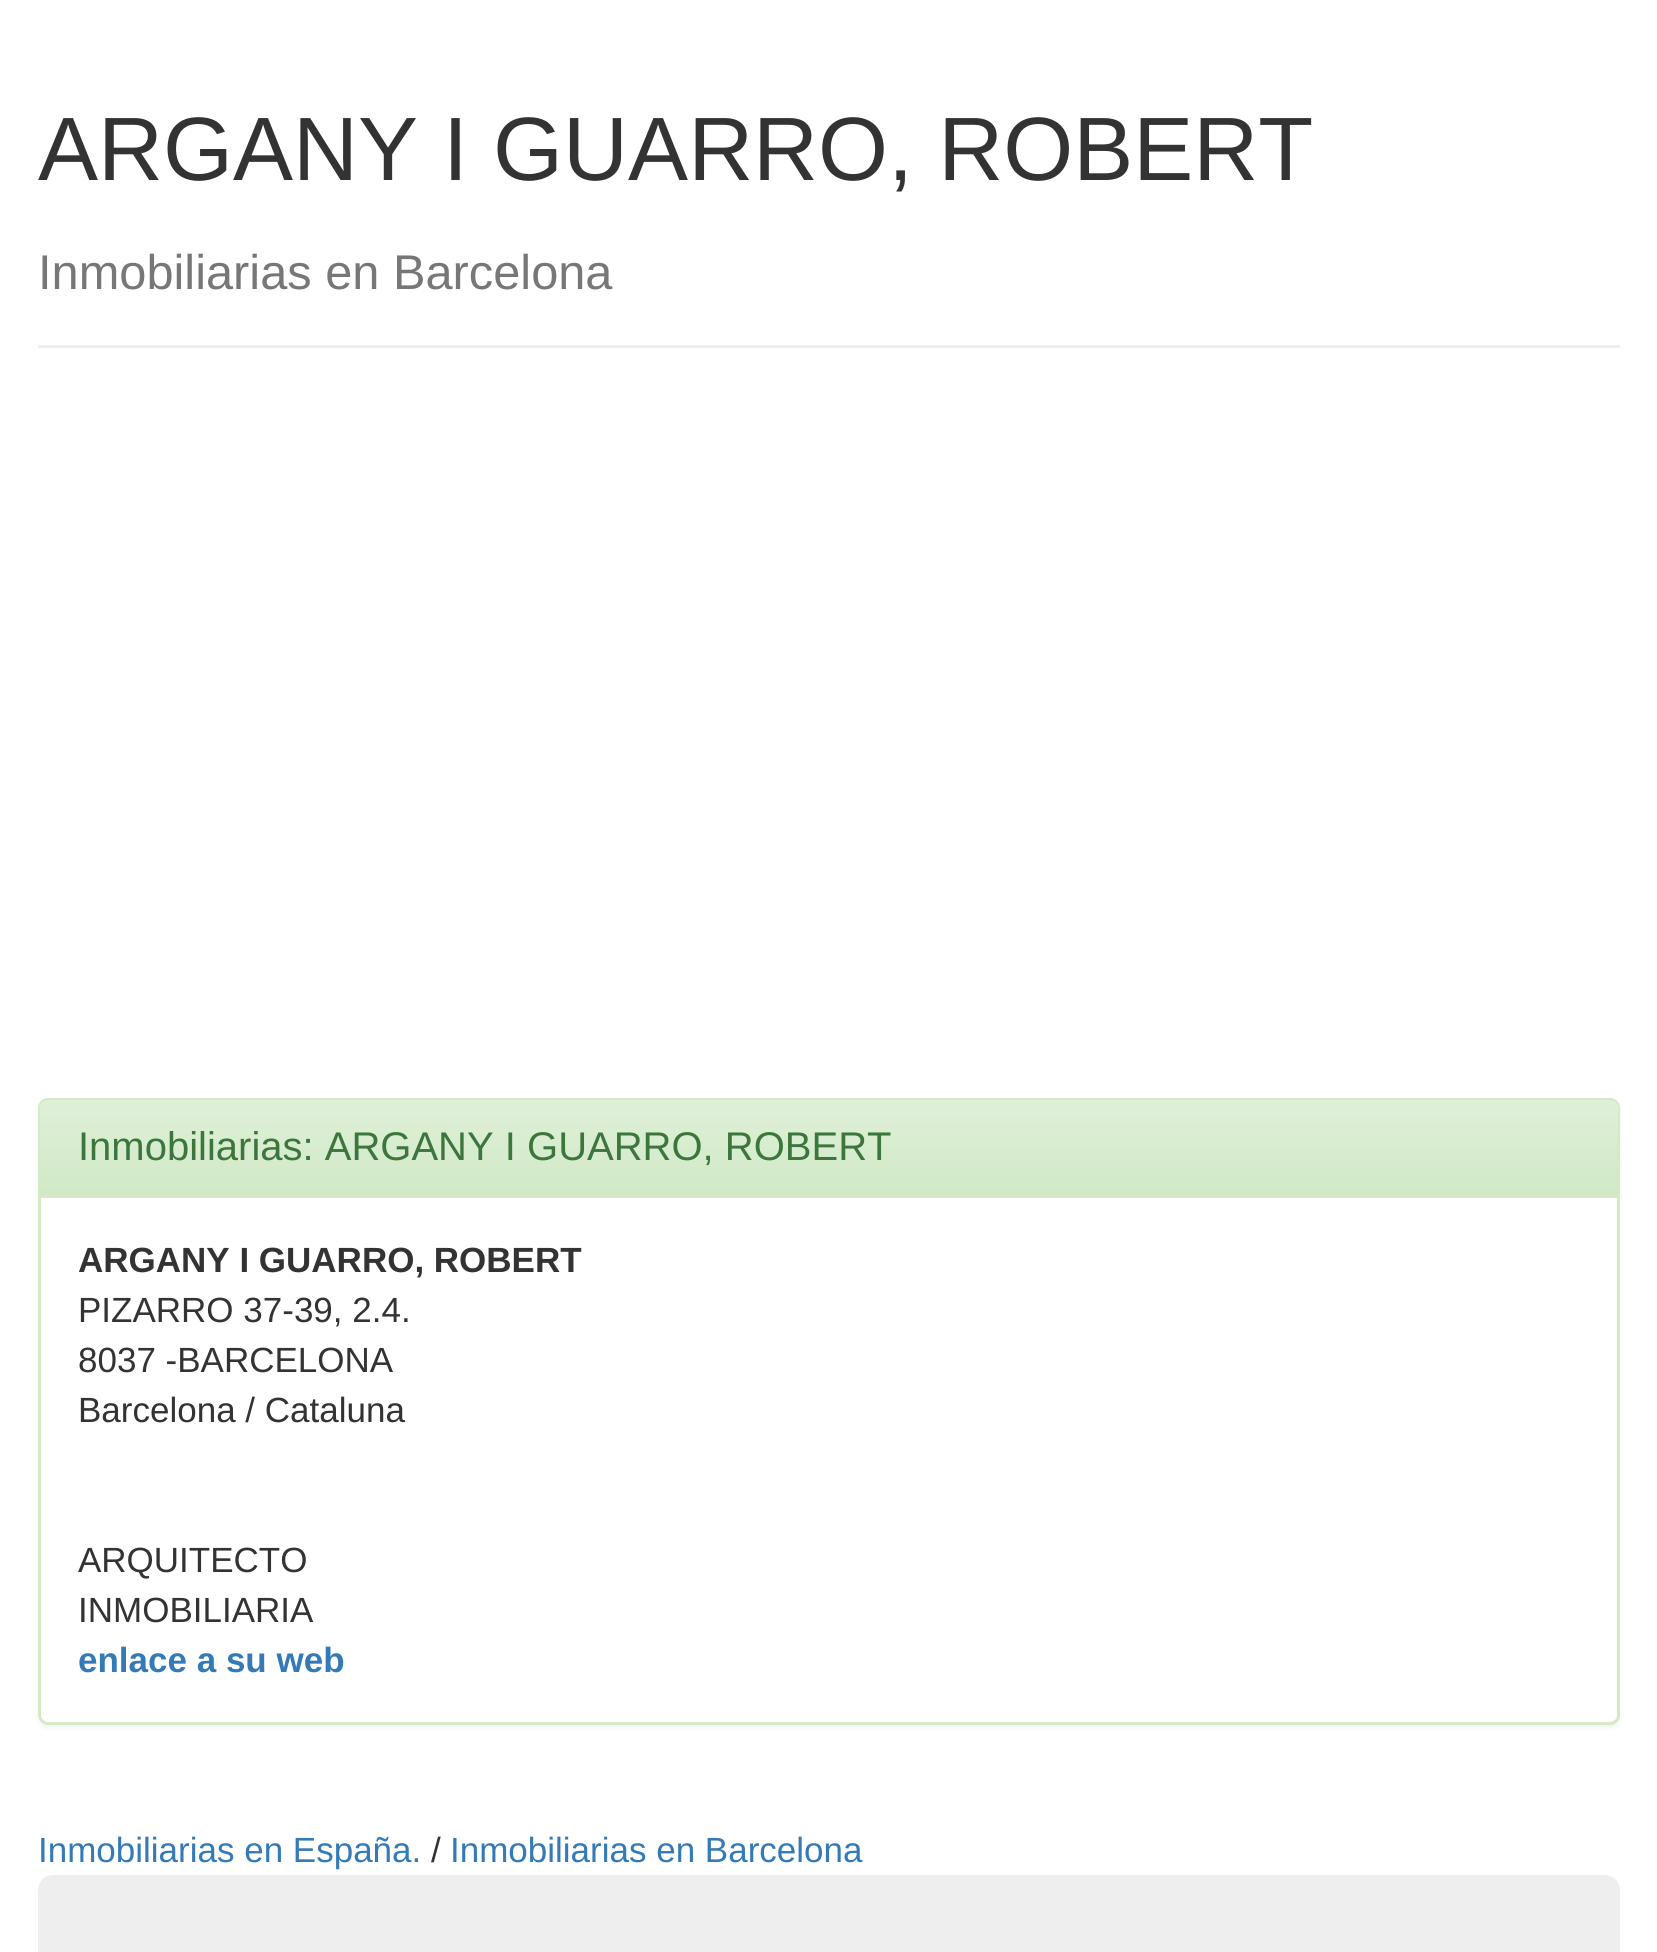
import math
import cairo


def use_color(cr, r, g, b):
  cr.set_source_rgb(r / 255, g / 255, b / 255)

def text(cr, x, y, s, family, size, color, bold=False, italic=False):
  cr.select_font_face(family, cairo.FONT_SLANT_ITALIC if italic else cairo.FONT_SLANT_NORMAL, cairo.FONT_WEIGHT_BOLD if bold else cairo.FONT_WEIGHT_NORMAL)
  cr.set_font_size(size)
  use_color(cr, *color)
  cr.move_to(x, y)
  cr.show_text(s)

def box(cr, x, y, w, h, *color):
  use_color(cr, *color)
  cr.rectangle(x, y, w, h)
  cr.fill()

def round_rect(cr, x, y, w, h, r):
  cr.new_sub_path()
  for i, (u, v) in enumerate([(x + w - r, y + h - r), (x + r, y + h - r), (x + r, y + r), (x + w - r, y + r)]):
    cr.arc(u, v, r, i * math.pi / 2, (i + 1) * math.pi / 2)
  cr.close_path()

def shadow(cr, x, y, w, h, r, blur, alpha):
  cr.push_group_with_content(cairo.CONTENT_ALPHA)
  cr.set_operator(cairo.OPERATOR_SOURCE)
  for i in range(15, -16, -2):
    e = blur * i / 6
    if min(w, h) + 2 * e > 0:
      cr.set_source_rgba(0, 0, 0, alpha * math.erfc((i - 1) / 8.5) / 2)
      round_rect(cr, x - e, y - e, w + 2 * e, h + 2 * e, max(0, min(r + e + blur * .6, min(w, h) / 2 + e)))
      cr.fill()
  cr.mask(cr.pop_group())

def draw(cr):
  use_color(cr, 255, 255, 255)
  cr.paint()
  box(cr, 38, 345, 1582, 3, 238, 238, 238)
  use_color(cr, 0, 0, 0)
  shadow(cr, 38, 1100, 1582, 628, 10, 2.5, 0.05)
  use_color(cr, 255, 255, 255)
  round_rect(cr, 39.5, 1099.5, 1579, 624, 8.5)
  cr.fill_preserve()
  use_color(cr, 214, 233, 198)
  cr.set_line_width(3)
  cr.stroke()
  gradient = cairo.LinearGradient(829, 1100, 829, 1195)
  gradient.add_color_stop_rgba(0, 0.875, 0.941, 0.847, 1)
  gradient.add_color_stop_rgba(1, 0.816, 0.914, 0.776, 1)
  cr.set_source(gradient)
  cr.new_path()
  cr.move_to(48, 1100)
  cr.line_to(1610, 1100)
  cr.curve_to(1614.5, 1100, 1618, 1103.5, 1618, 1108)
  cr.line_to(1618, 1195)
  cr.line_to(40, 1195)
  cr.line_to(40, 1108)
  cr.curve_to(40, 1103.5, 43.5, 1100, 48, 1100)
  cr.close_path()
  cr.fill()
  box(cr, 40, 1195, 1578, 3, 214, 233, 198)
  use_color(cr, 238, 238, 238)
  round_rect(cr, 38, 1875, 1582, 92, 15)
  cr.fill()
  text(cr, 38, 180, "ARGANY I GUARRO, ROBERT", "Liberation Sans", 90, (51, 51, 51))
  text(cr, 38, 289, "Inmobiliarias en Barcelona", "Liberation Sans", 48.75, (119, 119, 119))
  text(cr, 78, 1160, "Inmobiliarias: ARGANY I GUARRO, ROBERT", "Liberation Sans", 40, (60, 118, 61))
  text(cr, 78, 1272, "ARGANY I GUARRO, ROBERT", "Liberation Sans", 35, (51, 51, 51), bold=True)
  text(cr, 78, 1322, "PIZARRO 37-39, 2.4.", "Liberation Sans", 35, (51, 51, 51))
  text(cr, 78, 1372, "8037 -BARCELONA", "Liberation Sans", 35, (51, 51, 51))
  text(cr, 78, 1422, "Barcelona / Cataluna", "Liberation Sans", 35, (51, 51, 51))
  text(cr, 78, 1572, "ARQUITECTO", "Liberation Sans", 35, (51, 51, 51))
  text(cr, 78, 1622, "INMOBILIARIA", "Liberation Sans", 35, (51, 51, 51))
  text(cr, 78, 1672, "enlace a su web", "Liberation Sans", 35, (51, 122, 183), bold=True)
  text(cr, 38, 1862, "Inmobiliarias en España.", "Liberation Sans", 35, (51, 122, 183))
  text(cr, 431, 1862, "/", "Liberation Sans", 35, (51, 51, 51))
  text(cr, 450, 1862, "Inmobiliarias en Barcelona", "Liberation Sans", 35, (51, 122, 183))


surface = cairo.ImageSurface(cairo.FORMAT_RGB24, 1657, 1952)
cr = cairo.Context(surface)
options = cairo.FontOptions()
options.set_hint_metrics(cairo.HINT_METRICS_OFF)
options.set_hint_style(cairo.HINT_STYLE_NONE)
cr.set_font_options(options)
cr.set_miter_limit(4)
draw(cr)
surface.write_to_png("out.png")
